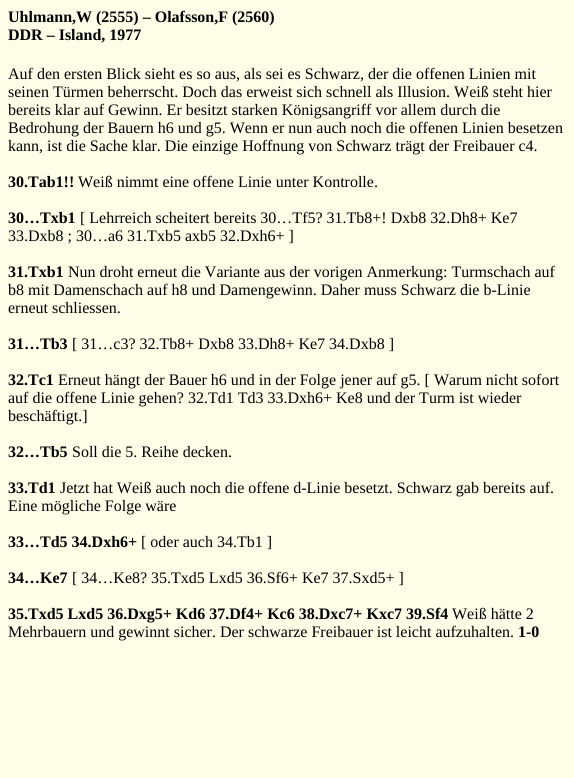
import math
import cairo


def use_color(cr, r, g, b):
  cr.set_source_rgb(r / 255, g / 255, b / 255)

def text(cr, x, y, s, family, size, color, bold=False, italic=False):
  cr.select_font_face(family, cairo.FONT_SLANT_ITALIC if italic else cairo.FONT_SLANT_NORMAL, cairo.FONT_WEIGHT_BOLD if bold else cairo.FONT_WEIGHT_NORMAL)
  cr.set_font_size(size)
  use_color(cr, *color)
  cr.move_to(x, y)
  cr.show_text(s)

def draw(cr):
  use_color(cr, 254, 253, 232)
  cr.paint()
  text(cr, 8, 22, "Uhlmann,W (2555) – Olafsson,F (2560)", "Liberation Serif", 16, (0, 0, 0), bold=True)
  text(cr, 8, 40, "DDR – Island, 1977", "Liberation Serif", 16, (0, 0, 0), bold=True)
  text(cr, 8, 79, "Auf den ersten Blick sieht es so aus, als sei es Schwarz, der die offenen Linien mit", "Liberation Serif", 16, (0, 0, 0))
  text(cr, 8, 97, "seinen Türmen beherrscht. Doch das erweist sich schnell als Illusion. Weiß steht hier", "Liberation Serif", 16, (0, 0, 0))
  text(cr, 8, 115, "bereits klar auf Gewinn. Er besitzt starken Königsangriff vor allem durch die", "Liberation Serif", 16, (0, 0, 0))
  text(cr, 8, 133, "Bedrohung der Bauern h6 und g5. Wenn er nun auch noch die offenen Linien besetzen", "Liberation Serif", 16, (0, 0, 0))
  text(cr, 8, 151, "kann, ist die Sache klar. Die einzige Hoffnung von Schwarz trägt der Freibauer c4.", "Liberation Serif", 16, (0, 0, 0))
  text(cr, 8, 187, "30.Tab1!!", "Liberation Serif", 16, (0, 0, 0), bold=True)
  text(cr, 78, 187, "Weiß nimmt eine offene Linie unter Kontrolle.", "Liberation Serif", 16, (0, 0, 0))
  text(cr, 8, 223, "30…Txb1", "Liberation Serif", 16, (0, 0, 0), bold=True)
  text(cr, 80, 223, "[ Lehrreich scheitert bereits 30…Tf5? 31.Tb8+! Dxb8 32.Dh8+ Ke7", "Liberation Serif", 16, (0, 0, 0))
  text(cr, 8, 241, "33.Dxb8 ; 30…a6 31.Txb5 axb5 32.Dxh6+ ]", "Liberation Serif", 16, (0, 0, 0))
  text(cr, 8, 277, "31.Txb1", "Liberation Serif", 16, (0, 0, 0), bold=True)
  text(cr, 68, 277, "Nun droht erneut die Variante aus der vorigen Anmerkung: Turmschach auf", "Liberation Serif", 16, (0, 0, 0))
  text(cr, 8, 295, "b8 mit Damenschach auf h8 und Damengewinn. Daher muss Schwarz die b-Linie", "Liberation Serif", 16, (0, 0, 0))
  text(cr, 8, 313, "erneut schliessen.", "Liberation Serif", 16, (0, 0, 0))
  text(cr, 8, 349, "31…Tb3", "Liberation Serif", 16, (0, 0, 0), bold=True)
  text(cr, 72, 349, "[ 31…c3? 32.Tb8+ Dxb8 33.Dh8+ Ke7 34.Dxb8 ]", "Liberation Serif", 16, (0, 0, 0))
  text(cr, 8, 385, "32.Tc1", "Liberation Serif", 16, (0, 0, 0), bold=True)
  text(cr, 58, 385, "Erneut hängt der Bauer h6 und in der Folge jener auf g5. [ Warum nicht sofort", "Liberation Serif", 16, (0, 0, 0))
  text(cr, 8, 403, "auf die offene Linie gehen? 32.Td1 Td3 33.Dxh6+ Ke8 und der Turm ist wieder", "Liberation Serif", 16, (0, 0, 0))
  text(cr, 8, 421, "beschäftigt.]", "Liberation Serif", 16, (0, 0, 0))
  text(cr, 8, 457, "32…Tb5", "Liberation Serif", 16, (0, 0, 0), bold=True)
  text(cr, 72, 457, "Soll die 5. Reihe decken.", "Liberation Serif", 16, (0, 0, 0))
  text(cr, 8, 493, "33.Td1", "Liberation Serif", 16, (0, 0, 0), bold=True)
  text(cr, 60, 493, "Jetzt hat Weiß auch noch die offene d-Linie besetzt. Schwarz gab bereits auf.", "Liberation Serif", 16, (0, 0, 0))
  text(cr, 8, 511, "Eine mögliche Folge wäre", "Liberation Serif", 16, (0, 0, 0))
  text(cr, 8, 547, "33…Td5 34.Dxh6+", "Liberation Serif", 16, (0, 0, 0), bold=True)
  text(cr, 141, 547, "[ oder auch 34.Tb1 ]", "Liberation Serif", 16, (0, 0, 0))
  text(cr, 8, 583, "34…Ke7", "Liberation Serif", 16, (0, 0, 0), bold=True)
  text(cr, 72, 583, "[ 34…Ke8? 35.Txd5 Lxd5 36.Sf6+ Ke7 37.Sxd5+ ]", "Liberation Serif", 16, (0, 0, 0))
  text(cr, 8, 619, "35.Txd5 Lxd5 36.Dxg5+ Kd6 37.Df4+ Kc6 38.Dxc7+ Kxc7 39.Sf4", "Liberation Serif", 16, (0, 0, 0), bold=True)
  text(cr, 452, 619, "Weiß hätte 2", "Liberation Serif", 16, (0, 0, 0))
  text(cr, 8, 637, "Mehrbauern und gewinnt sicher. Der schwarze Freibauer ist leicht aufzuhalten.", "Liberation Serif", 16, (0, 0, 0))
  text(cr, 518, 637, "1-0", "Liberation Serif", 16, (0, 0, 0), bold=True)


surface = cairo.ImageSurface(cairo.FORMAT_RGB24, 574, 778)
cr = cairo.Context(surface)
options = cairo.FontOptions()
options.set_hint_metrics(cairo.HINT_METRICS_OFF)
options.set_hint_style(cairo.HINT_STYLE_NONE)
cr.set_font_options(options)
cr.set_miter_limit(4)
draw(cr)
surface.write_to_png("out.png")
